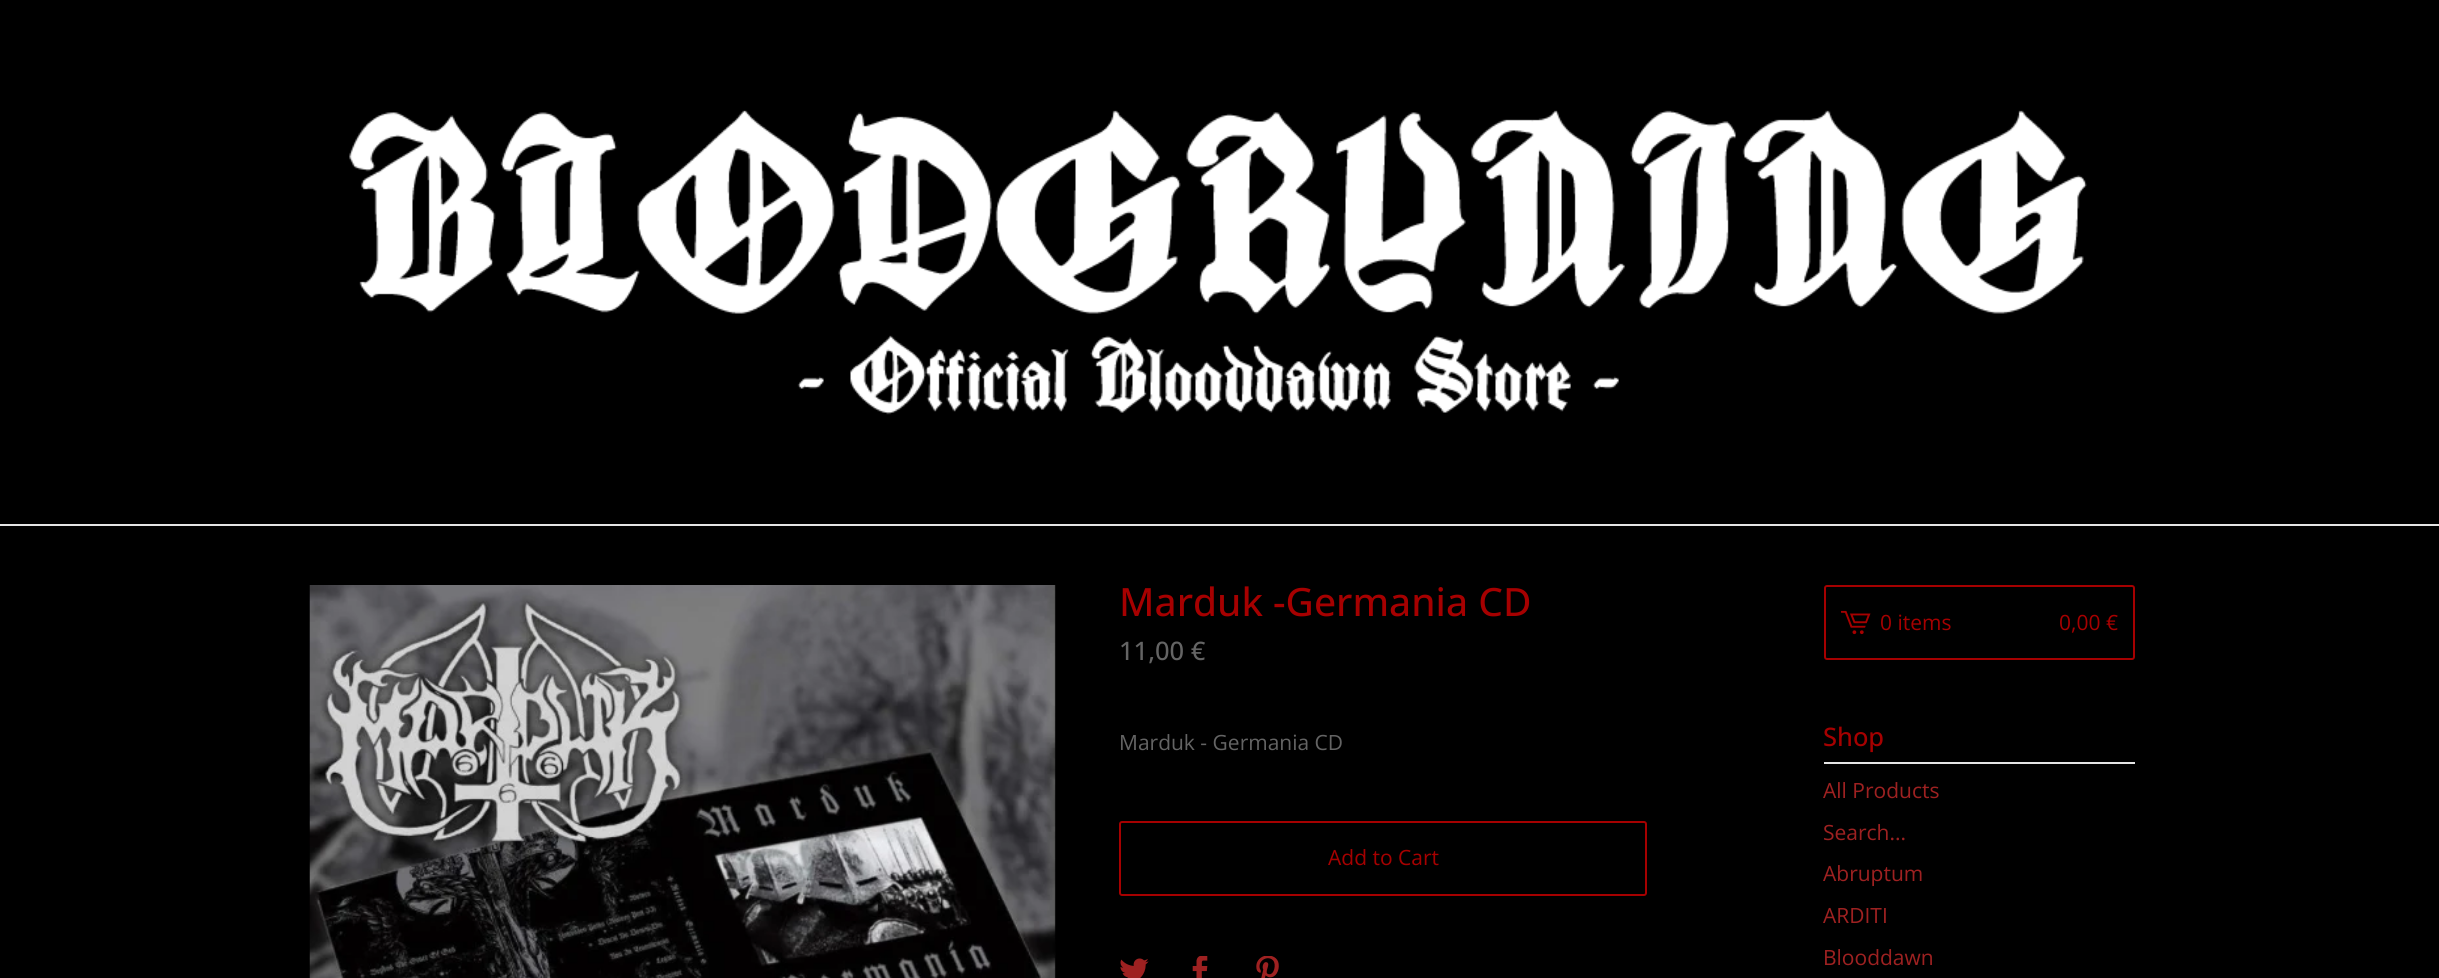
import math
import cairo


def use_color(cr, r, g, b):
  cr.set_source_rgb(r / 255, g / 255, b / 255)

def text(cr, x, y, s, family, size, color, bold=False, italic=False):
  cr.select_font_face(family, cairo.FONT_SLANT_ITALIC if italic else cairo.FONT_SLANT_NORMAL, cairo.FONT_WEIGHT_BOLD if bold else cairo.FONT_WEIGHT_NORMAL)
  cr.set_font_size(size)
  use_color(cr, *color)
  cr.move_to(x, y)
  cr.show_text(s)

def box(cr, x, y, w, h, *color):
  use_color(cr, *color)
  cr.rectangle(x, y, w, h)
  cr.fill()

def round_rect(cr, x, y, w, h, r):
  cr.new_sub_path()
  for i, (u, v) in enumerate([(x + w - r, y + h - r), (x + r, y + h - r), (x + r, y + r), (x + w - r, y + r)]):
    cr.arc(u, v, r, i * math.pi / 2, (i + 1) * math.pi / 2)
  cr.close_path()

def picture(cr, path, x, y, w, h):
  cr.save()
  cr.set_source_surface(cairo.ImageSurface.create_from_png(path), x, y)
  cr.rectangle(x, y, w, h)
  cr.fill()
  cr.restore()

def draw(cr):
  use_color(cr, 0, 0, 0)
  cr.paint()
  box(cr, 0, 524, 2439, 2, 229, 229, 229)
  picture(cr, "img_01.png", 349, 110, 1738, 305)
  picture(cr, "img_02.png", 309, 585, 747, 393)
  round_rect(cr, 1120, 822, 526, 73, 2)
  use_color(cr, 166, 0, 0)
  cr.stroke()
  picture(cr, "img_03.png", 1120, 958, 29, 20)
  picture(cr, "img_04.png", 1192, 956, 16, 22)
  picture(cr, "img_05.png", 1256, 956, 23, 22)
  round_rect(cr, 1825, 586, 309, 73, 2)
  cr.stroke()
  picture(cr, "img_06.png", 1841, 610, 30, 25)
  box(cr, 1824, 762, 311, 2, 229, 229, 229)
  text(cr, 1119, 616, "Marduk -Germania CD", "Open Sans Medium", 39, (166, 0, 0))
  text(cr, 1119, 660, "11,00 €", "Open Sans Medium", 25.5, (100, 100, 100))
  text(cr, 1119, 750, "Marduk - Germania CD", "Open Sans", 21, (100, 100, 100))
  text(cr, 1328, 865, "Add to Cart", "Open Sans", 21, (166, 0, 0))
  text(cr, 1880, 630, "0 items", "Open Sans", 21, (166, 0, 0))
  text(cr, 2059, 630, "0,00 €", "Open Sans", 21, (166, 0, 0))
  text(cr, 1823, 746, "Shop", "Open Sans Medium", 25.5, (166, 0, 0))
  text(cr, 1823, 798, "All Products", "Open Sans", 21, (158, 33, 33))
  text(cr, 1823, 840, "Search...", "Open Sans", 21, (158, 33, 33))
  text(cr, 1823, 881, "Abruptum", "Open Sans", 21, (158, 33, 33))
  text(cr, 1823, 923, "ARDITI", "Open Sans", 21, (158, 33, 33))
  text(cr, 1823, 965, "Blooddawn", "Open Sans", 21, (158, 33, 33))


surface = cairo.ImageSurface(cairo.FORMAT_RGB24, 2439, 978)
cr = cairo.Context(surface)
options = cairo.FontOptions()
options.set_hint_metrics(cairo.HINT_METRICS_OFF)
options.set_hint_style(cairo.HINT_STYLE_NONE)
cr.set_font_options(options)
cr.set_miter_limit(4)
draw(cr)
surface.write_to_png("out.png")
